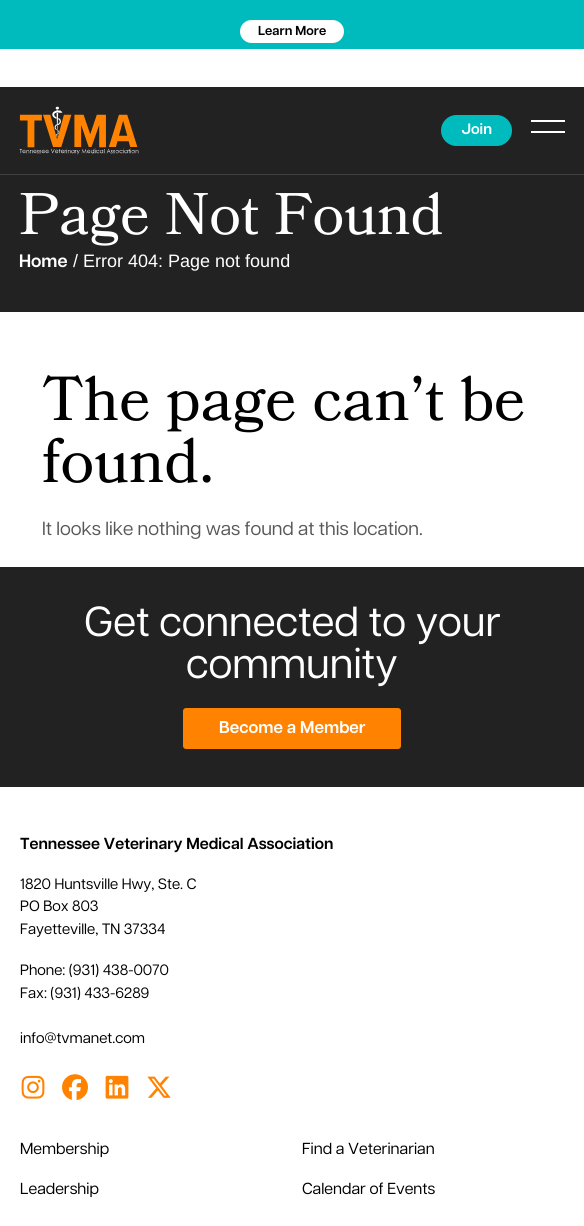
import math
import cairo


def use_color(cr, r, g, b):
  cr.set_source_rgb(r / 255, g / 255, b / 255)

def text(cr, x, y, s, family, size, color, bold=False, italic=False):
  cr.select_font_face(family, cairo.FONT_SLANT_ITALIC if italic else cairo.FONT_SLANT_NORMAL, cairo.FONT_WEIGHT_BOLD if bold else cairo.FONT_WEIGHT_NORMAL)
  cr.set_font_size(size)
  use_color(cr, *color)
  cr.move_to(x, y)
  cr.show_text(s)

def box(cr, x, y, w, h, *color):
  use_color(cr, *color)
  cr.rectangle(x, y, w, h)
  cr.fill()

def round_rect(cr, x, y, w, h, r):
  cr.new_sub_path()
  for i, (u, v) in enumerate([(x + w - r, y + h - r), (x + r, y + h - r), (x + r, y + r), (x + w - r, y + r)]):
    cr.arc(u, v, r, i * math.pi / 2, (i + 1) * math.pi / 2)
  cr.close_path()

def picture(cr, path, x, y, w, h):
  cr.save()
  cr.set_source_surface(cairo.ImageSurface.create_from_png(path), x, y)
  cr.rectangle(x, y, w, h)
  cr.fill()
  cr.restore()

def draw(cr):
  use_color(cr, 255, 255, 255)
  cr.paint()
  box(cr, 0, 0, 584, 49, 0, 187, 190)
  use_color(cr, 255, 255, 255)
  round_rect(cr, 240, 20, 104, 23, 11.5)
  cr.fill()
  box(cr, 0, 87, 584, 87, 34, 34, 34)
  box(cr, 0, 174, 584, 1, 64, 64, 64)
  picture(cr, "img_01.png", 19, 106, 120, 49)
  use_color(cr, 0, 187, 190)
  round_rect(cr, 441, 115, 71, 31, 15.5)
  cr.fill()
  box(cr, 531, 120, 34, 2, 255, 255, 255)
  box(cr, 531, 131, 34, 2, 255, 255, 255)
  box(cr, 0, 175, 584, 137, 34, 34, 34)
  box(cr, 0, 567, 584, 220, 34, 34, 34)
  use_color(cr, 255, 131, 0)
  round_rect(cr, 183, 708, 218, 41, 3)
  cr.fill()
  picture(cr, "img_02.png", 21, 1075, 24, 24)
  picture(cr, "img_03.png", 62, 1074, 26, 27)
  picture(cr, "img_04.png", 105, 1075, 24, 24)
  picture(cr, "img_05.png", 147, 1076, 24, 22)
  text(cr, 258, 35, "Learn More", "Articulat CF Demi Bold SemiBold", 13, (0, 0, 0))
  text(cr, 461, 134, "Join", "Articulat CF Demi Bold SemiBold", 15, (255, 255, 255))
  text(cr, 19, 234, "Page Not Found", "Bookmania", 58.5, (255, 255, 255))
  text(cr, 19, 267, "Home", "Articulat CF Demi Bold SemiBold", 18, (255, 255, 255))
  text(cr, 73, 267, "/ Error 404: Page not found", "Liberation Sans", 18, (255, 255, 255))
  text(cr, 42, 420, "The page can’t be", "Bookmania", 62, (0, 0, 0))
  text(cr, 42, 482, "found.", "Bookmania", 62, (0, 0, 0))
  text(cr, 42, 535, "It looks like nothing was found at this location.", "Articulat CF", 19, (88, 88, 88))
  text(cr, 84, 636, "Get connected to your", "Articulat CF", 42, (255, 255, 255))
  text(cr, 186, 678, "community", "Articulat CF", 42, (255, 255, 255))
  text(cr, 219, 733, "Become a Member", "Articulat CF Demi Bold SemiBold", 17, (255, 255, 255))
  text(cr, 20, 849, "Tennessee Veterinary Medical Association", "Articulat CF Demi Bold SemiBold", 16, (0, 0, 0))
  text(cr, 20, 889, "1820 Huntsville Hwy, Ste. C", "Articulat CF", 15, (0, 0, 0))
  text(cr, 20, 911, "PO Box 803", "Articulat CF", 15, (0, 0, 0))
  text(cr, 20, 934, "Fayetteville, TN 37334", "Articulat CF", 15, (0, 0, 0))
  text(cr, 20, 975, "Phone: (931) 438-0070", "Articulat CF", 15, (0, 0, 0))
  text(cr, 20, 998, "Fax: (931) 433-6289", "Articulat CF", 15, (0, 0, 0))
  text(cr, 20, 1043, "info@tvmanet.com", "Articulat CF", 15, (0, 0, 0))
  text(cr, 20, 1154, "Membership", "Articulat CF", 16, (0, 0, 0))
  text(cr, 20, 1194, "Leadership", "Articulat CF", 16, (0, 0, 0))
  text(cr, 302, 1154, "Find a Veterinarian", "Articulat CF", 16, (0, 0, 0))
  text(cr, 302, 1194, "Calendar of Events", "Articulat CF", 16, (0, 0, 0))


surface = cairo.ImageSurface(cairo.FORMAT_RGB24, 584, 1226)
cr = cairo.Context(surface)
options = cairo.FontOptions()
options.set_hint_metrics(cairo.HINT_METRICS_OFF)
options.set_hint_style(cairo.HINT_STYLE_NONE)
cr.set_font_options(options)
cr.set_miter_limit(4)
draw(cr)
surface.write_to_png("out.png")
